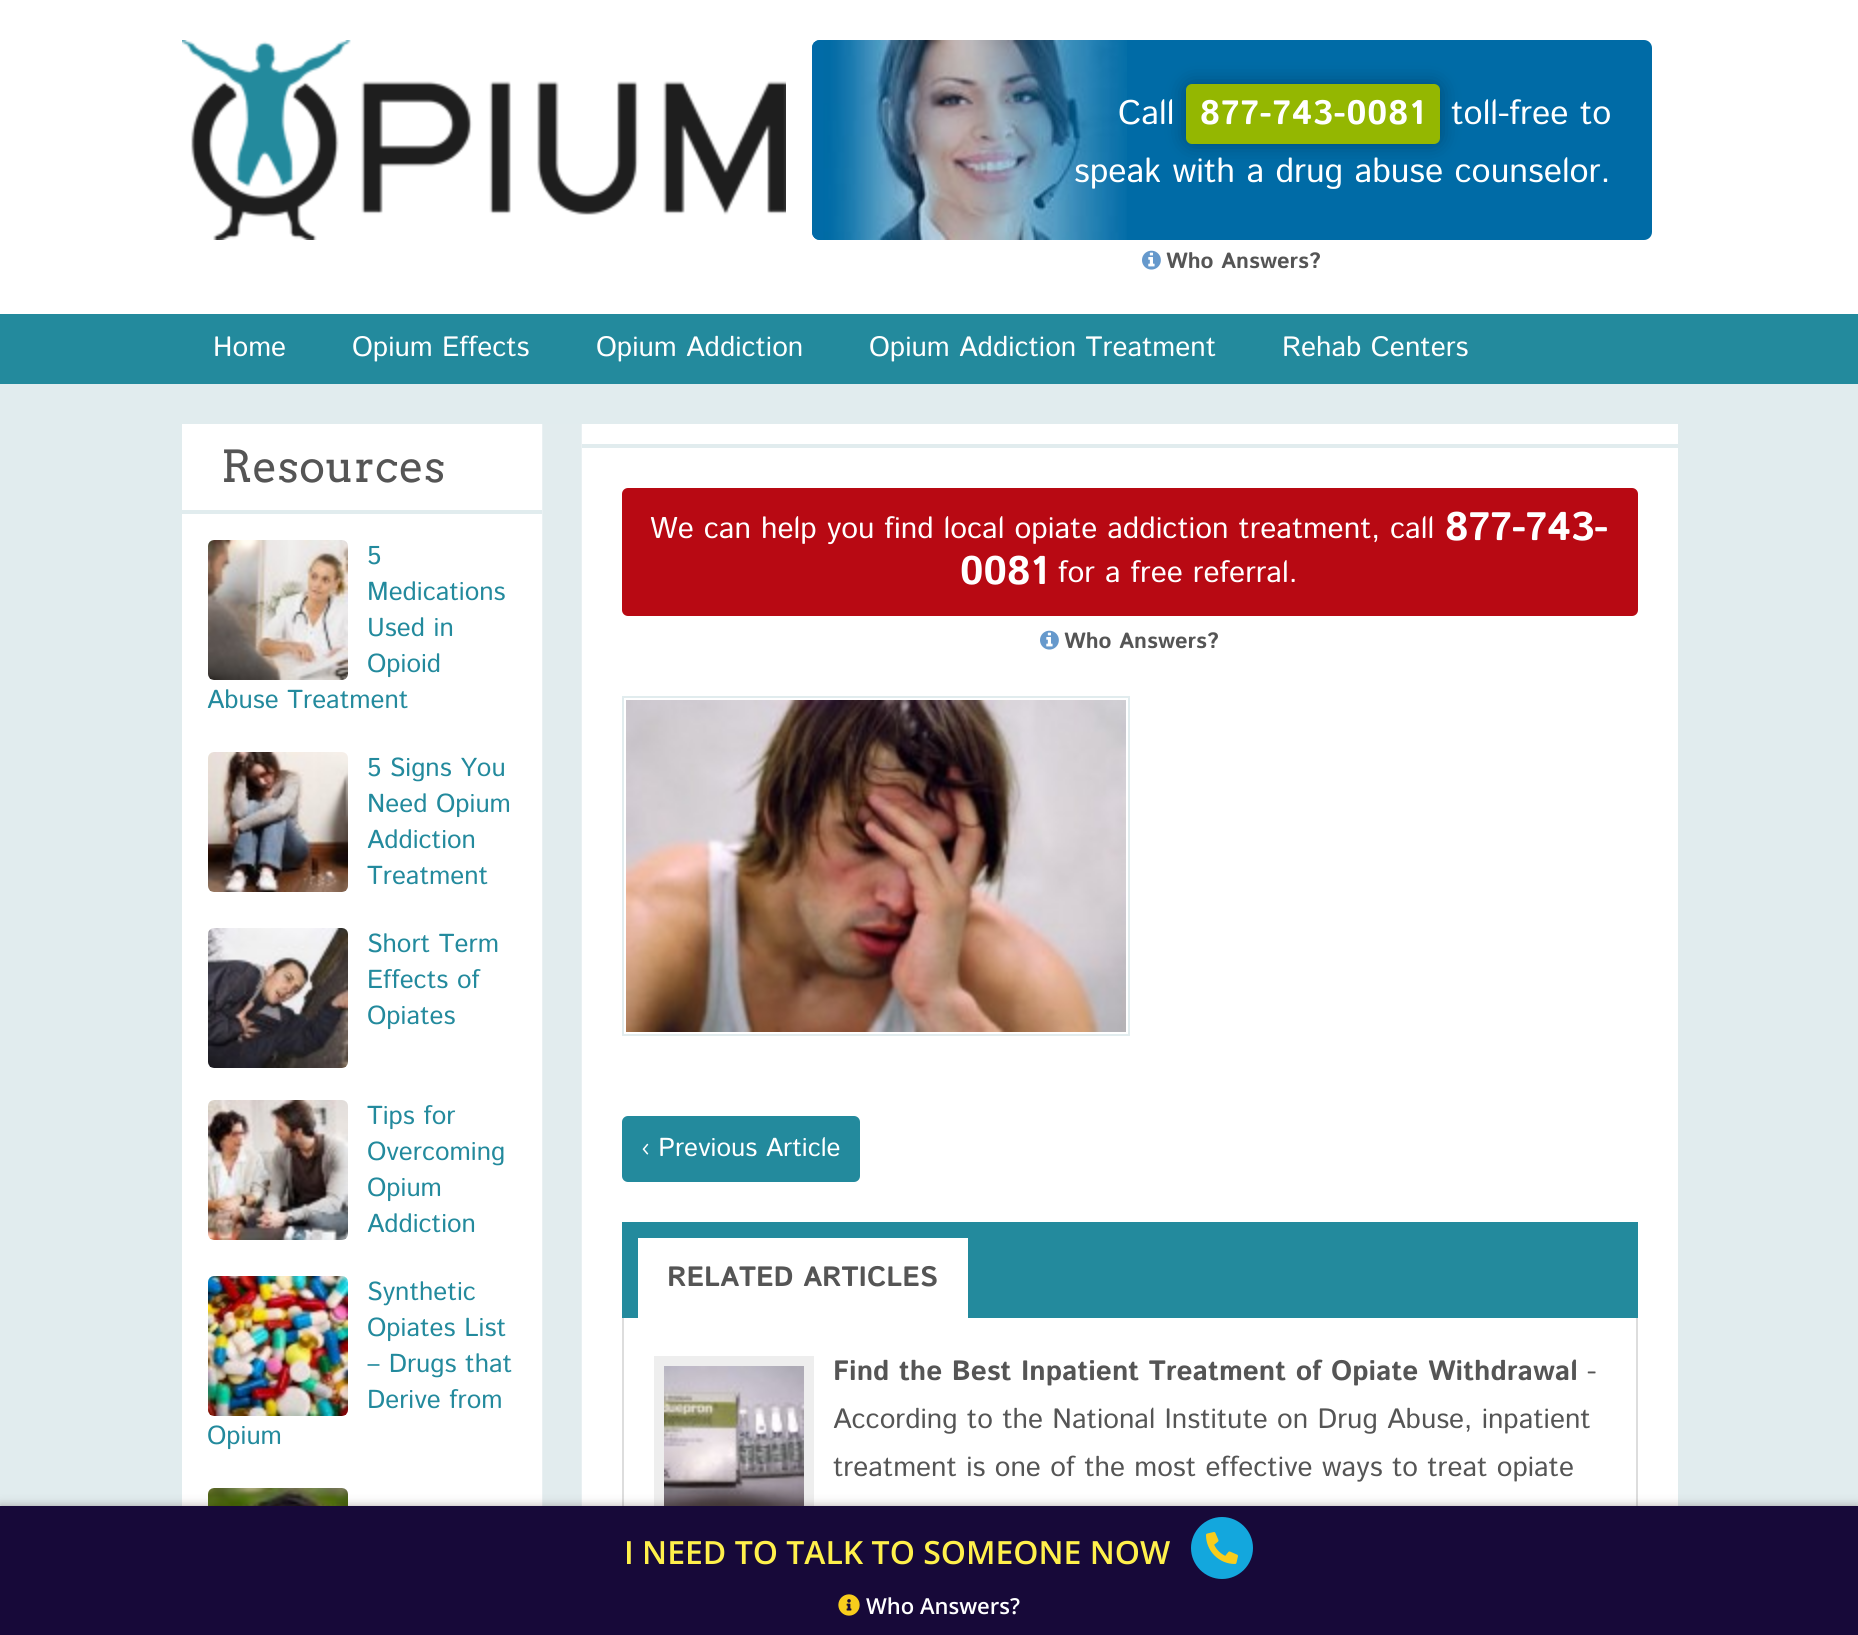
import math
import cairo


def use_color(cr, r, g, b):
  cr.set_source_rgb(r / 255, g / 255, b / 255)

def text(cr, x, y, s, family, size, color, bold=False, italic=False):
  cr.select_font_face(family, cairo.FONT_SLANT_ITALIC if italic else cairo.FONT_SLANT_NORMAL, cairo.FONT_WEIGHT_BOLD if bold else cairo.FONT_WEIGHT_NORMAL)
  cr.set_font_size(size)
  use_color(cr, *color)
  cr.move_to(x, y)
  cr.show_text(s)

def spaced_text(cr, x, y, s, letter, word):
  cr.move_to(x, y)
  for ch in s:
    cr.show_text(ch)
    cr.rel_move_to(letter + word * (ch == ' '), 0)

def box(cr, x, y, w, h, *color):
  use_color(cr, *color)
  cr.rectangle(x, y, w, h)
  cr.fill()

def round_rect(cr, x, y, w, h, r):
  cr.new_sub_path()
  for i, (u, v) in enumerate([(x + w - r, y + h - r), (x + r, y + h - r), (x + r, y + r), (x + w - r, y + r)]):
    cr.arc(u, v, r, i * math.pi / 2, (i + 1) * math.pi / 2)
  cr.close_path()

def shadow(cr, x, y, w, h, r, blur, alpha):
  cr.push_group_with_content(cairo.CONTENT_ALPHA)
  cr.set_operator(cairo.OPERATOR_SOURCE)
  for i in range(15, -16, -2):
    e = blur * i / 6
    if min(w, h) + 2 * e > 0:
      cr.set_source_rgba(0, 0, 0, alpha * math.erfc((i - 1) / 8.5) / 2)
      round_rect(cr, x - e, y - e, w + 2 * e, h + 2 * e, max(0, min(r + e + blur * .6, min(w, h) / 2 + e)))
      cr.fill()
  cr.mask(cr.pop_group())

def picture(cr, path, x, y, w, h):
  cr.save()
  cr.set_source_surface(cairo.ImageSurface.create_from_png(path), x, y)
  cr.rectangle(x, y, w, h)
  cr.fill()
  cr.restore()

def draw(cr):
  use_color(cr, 225, 236, 238)
  cr.paint()
  box(cr, 0, 0, 1858, 314, 255, 255, 255)
  picture(cr, "img_01.png", 182, 40, 604, 200)
  use_color(cr, 0, 107, 166)
  round_rect(cr, 812, 40, 840, 200, 8)
  cr.fill()
  picture(cr, "img_02.png", 812, 40, 315, 200)
  use_color(cr, 0, 0, 0)
  shadow(cr, 1186, 84, 254, 60, 6, 10, 0.3)
  use_color(cr, 148, 183, 1)
  round_rect(cr, 1186, 84, 254, 60, 6)
  cr.fill()
  picture(cr, "img_03.png", 1142, 250, 19, 20)
  box(cr, 0, 314, 1858, 70, 35, 138, 157)
  picture(cr, "img_04.png", 542, 424, 40, 1082)
  box(cr, 182, 424, 360, 1082, 255, 255, 255)
  box(cr, 182, 510, 360, 4, 225, 236, 238)
  picture(cr, "img_05.png", 208, 540, 140, 140)
  picture(cr, "img_06.png", 208, 752, 140, 140)
  picture(cr, "img_07.png", 208, 928, 140, 140)
  picture(cr, "img_08.png", 208, 1100, 140, 140)
  picture(cr, "img_09.png", 208, 1276, 140, 140)
  picture(cr, "img_10.png", 208, 1488, 140, 18)
  box(cr, 582, 424, 1096, 1082, 255, 255, 255)
  box(cr, 582, 444, 1096, 4, 225, 236, 238)
  use_color(cr, 184, 9, 19)
  round_rect(cr, 622, 488, 1016, 128, 6)
  cr.fill()
  picture(cr, "img_03.png", 1040, 630, 19, 20)
  cr.rectangle(623, 697, 506, 338)
  use_color(cr, 225, 236, 238)
  cr.stroke()
  picture(cr, "img_11.png", 626, 700, 500, 332)
  use_color(cr, 35, 138, 157)
  round_rect(cr, 622, 1116, 238, 66, 6)
  cr.fill()
  box(cr, 622, 1222, 1016, 96, 35, 138, 157)
  box(cr, 638, 1238, 330, 80, 255, 255, 255)
  box(cr, 1636, 1318, 2, 188, 221, 221, 221)
  box(cr, 622, 1318, 2, 188, 221, 221, 221)
  cr.rectangle(659, 1361, 150, 150)
  use_color(cr, 238, 238, 238)
  cr.set_line_width(10)
  cr.stroke()
  picture(cr, "img_12.png", 664, 1366, 140, 140)
  use_color(cr, 59, 39, 39)
  shadow(cr, 0, 1506, 1858, 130, 0, 5, 0.4)
  box(cr, 0, 1506, 1858, 129, 23, 9, 57)
  use_color(cr, 19, 167, 221)
  cr.new_path()
  cr.move_to(1222, 1517)
  cr.curve_to(1205, 1517, 1191, 1531, 1191, 1548)
  cr.curve_to(1191, 1565, 1205, 1579, 1222, 1579)
  cr.curve_to(1239, 1579, 1253, 1565, 1253, 1548)
  cr.curve_to(1253, 1531, 1239, 1517, 1222, 1517)
  cr.close_path()
  cr.fill()
  picture(cr, "img_13.png", 1206, 1532, 32, 32)
  picture(cr, "img_14.png", 838, 1594, 22, 22)
  text(cr, 1118, 124, "Call", "Istok Web", 34, (255, 255, 255))
  cr.select_font_face("Istok Web", cairo.FONT_SLANT_NORMAL, cairo.FONT_WEIGHT_BOLD)
  spaced_text(cr, 1200, 124, "877-743-0081", 1, 0)
  text(cr, 1451, 124, "toll-free to", "Istok Web", 34, (255, 255, 255))
  text(cr, 1074, 182, "speak with a drug abuse counselor.", "Istok Web", 34, (255, 255, 255))
  text(cr, 1166, 268, "Who Answers?", "Istok Web", 22, (85, 85, 85), bold=True)
  text(cr, 213, 356, "Home", "Istok Web", 28, (255, 255, 255))
  text(cr, 352, 356, "Opium Effects", "Istok Web", 28, (255, 255, 255))
  text(cr, 596, 356, "Opium Addiction", "Istok Web", 28, (255, 255, 255))
  text(cr, 869, 356, "Opium Addiction Treatment", "Istok Web", 28, (255, 255, 255))
  text(cr, 1282, 356, "Rehab Centers", "Istok Web", 28, (255, 255, 255))
  text(cr, 221, 482, "Resources", "Arvo", 44, (85, 85, 85))
  text(cr, 367, 564, "5", "Istok Web", 26, (35, 138, 157))
  text(cr, 367, 600, "Medications", "Istok Web", 26, (35, 138, 157))
  text(cr, 367, 636, "Used in", "Istok Web", 26, (35, 138, 157))
  text(cr, 367, 672, "Opioid", "Istok Web", 26, (35, 138, 157))
  text(cr, 207, 708, "Abuse Treatment", "Istok Web", 26, (35, 138, 157))
  text(cr, 367, 776, "5 Signs You", "Istok Web", 26, (35, 138, 157))
  text(cr, 367, 812, "Need Opium", "Istok Web", 26, (35, 138, 157))
  text(cr, 367, 848, "Addiction", "Istok Web", 26, (35, 138, 157))
  text(cr, 367, 884, "Treatment", "Istok Web", 26, (35, 138, 157))
  text(cr, 367, 952, "Short Term", "Istok Web", 26, (35, 138, 157))
  text(cr, 367, 988, "Effects of", "Istok Web", 26, (35, 138, 157))
  text(cr, 367, 1024, "Opiates", "Istok Web", 26, (35, 138, 157))
  text(cr, 367, 1124, "Tips for", "Istok Web", 26, (35, 138, 157))
  text(cr, 367, 1160, "Overcoming", "Istok Web", 26, (35, 138, 157))
  text(cr, 367, 1196, "Opium", "Istok Web", 26, (35, 138, 157))
  text(cr, 367, 1232, "Addiction", "Istok Web", 26, (35, 138, 157))
  text(cr, 367, 1300, "Synthetic", "Istok Web", 26, (35, 138, 157))
  text(cr, 367, 1336, "Opiates List", "Istok Web", 26, (35, 138, 157))
  text(cr, 367, 1372, "– Drugs that", "Istok Web", 26, (35, 138, 157))
  text(cr, 367, 1408, "Derive from", "Istok Web", 26, (35, 138, 157))
  text(cr, 207, 1444, "Opium", "Istok Web", 26, (35, 138, 157))
  text(cr, 650, 538, "We can help you find local opiate addiction treatment, call", "Istok Web", 30, (255, 255, 255))
  text(cr, 1445, 540, "877-743-", "Istok Web", 40, (255, 255, 255), bold=True)
  text(cr, 960, 584, "0081", "Istok Web", 40, (255, 255, 255), bold=True)
  text(cr, 1058, 582, "for a free referral.", "Istok Web", 30, (255, 255, 255))
  text(cr, 1064, 648, "Who Answers?", "Istok Web", 22, (85, 85, 85), bold=True)
  text(cr, 641, 1156, "‹ Previous Article", "Istok Web", 26, (255, 255, 255))
  text(cr, 667, 1286, "RELATED ARTICLES", "Istok Web", 28, (85, 85, 85), bold=True)
  text(cr, 833, 1380, "Find the Best Inpatient Treatment of Opiate Withdrawal", "Istok Web", 28, (85, 85, 85), bold=True)
  text(cr, 1587, 1380, "-", "Istok Web", 28, (85, 85, 85))
  text(cr, 833, 1428, "According to the National Institute on Drug Abuse, inpatient", "Istok Web", 28, (85, 85, 85))
  text(cr, 833, 1476, "treatment is one of the most effective ways to treat opiate", "Istok Web", 28, (85, 85, 85))
  text(cr, 624, 1564, "I NEED TO TALK TO SOMEONE NOW", "Open Sans SemiBold", 32, (255, 240, 75))
  text(cr, 866, 1614, "Who Answers?", "Open Sans SemiBold", 22, (255, 255, 255))


surface = cairo.ImageSurface(cairo.FORMAT_RGB24, 1858, 1635)
cr = cairo.Context(surface)
options = cairo.FontOptions()
options.set_hint_metrics(cairo.HINT_METRICS_OFF)
options.set_hint_style(cairo.HINT_STYLE_NONE)
cr.set_font_options(options)
cr.set_miter_limit(4)
draw(cr)
surface.write_to_png("out.png")
